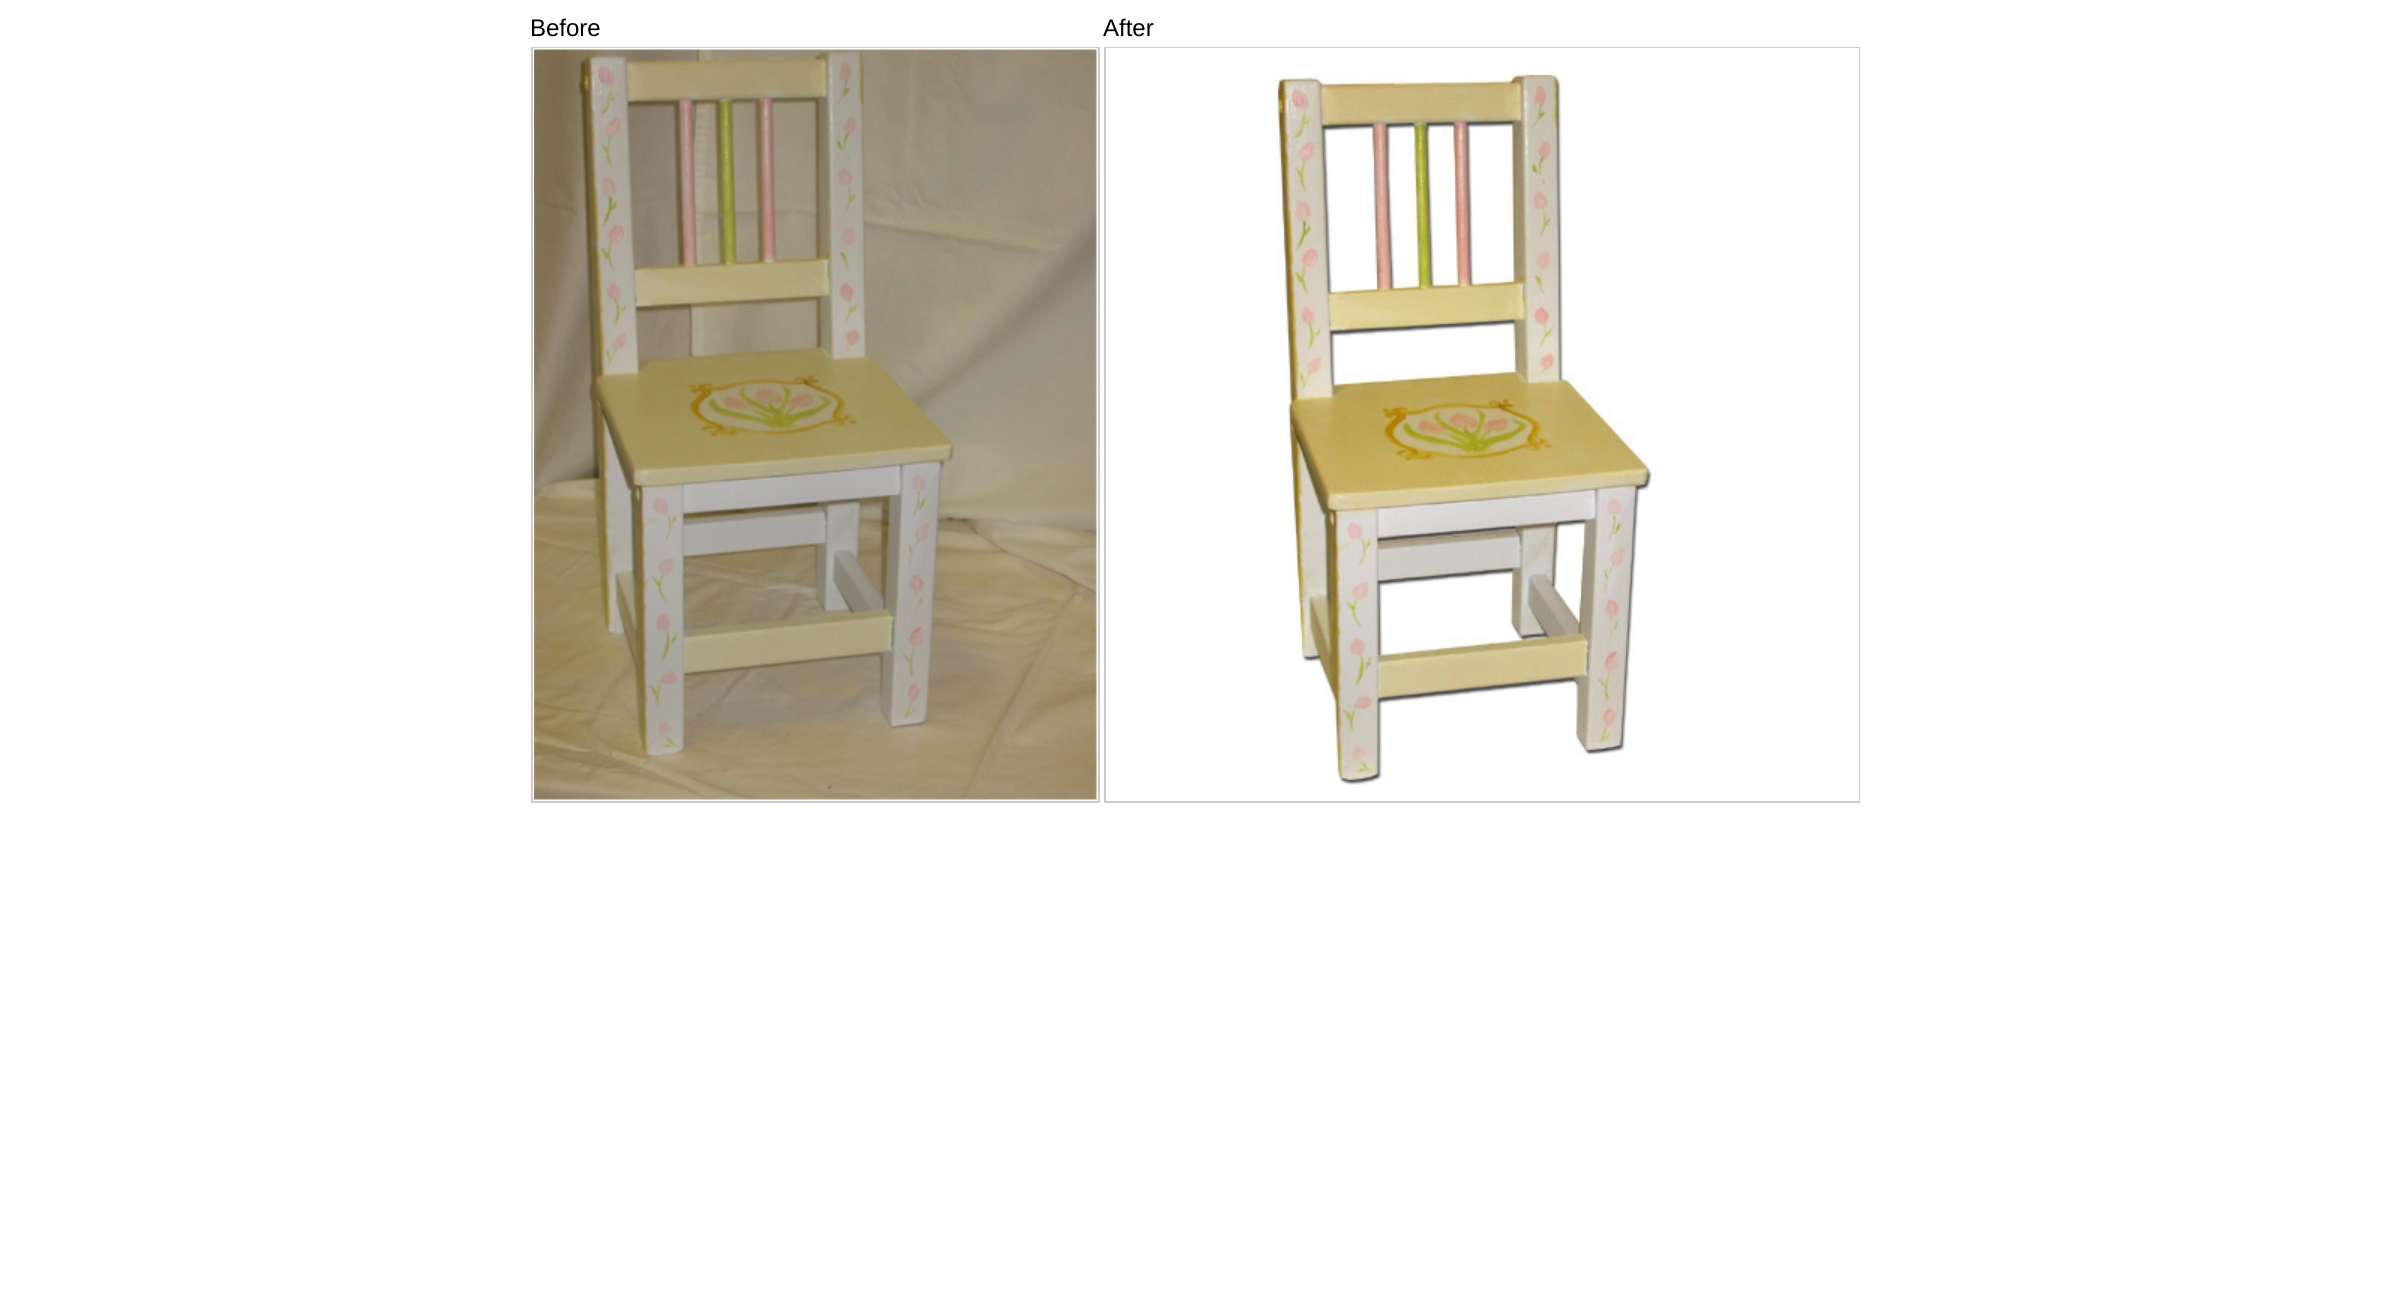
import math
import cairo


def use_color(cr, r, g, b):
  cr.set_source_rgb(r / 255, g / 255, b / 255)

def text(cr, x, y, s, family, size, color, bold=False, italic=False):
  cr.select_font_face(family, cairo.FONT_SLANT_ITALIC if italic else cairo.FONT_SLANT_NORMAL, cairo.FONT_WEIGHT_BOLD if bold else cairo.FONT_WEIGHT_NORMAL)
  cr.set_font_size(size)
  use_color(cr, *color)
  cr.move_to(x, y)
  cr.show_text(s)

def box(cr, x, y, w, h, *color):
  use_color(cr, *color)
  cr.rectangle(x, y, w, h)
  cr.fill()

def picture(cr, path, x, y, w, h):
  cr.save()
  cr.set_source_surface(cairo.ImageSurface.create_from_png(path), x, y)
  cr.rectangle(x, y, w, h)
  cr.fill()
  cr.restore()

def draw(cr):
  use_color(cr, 255, 255, 255)
  cr.paint()
  box(cr, 531, 47, 569, 756, 204, 204, 204)
  box(cr, 533, 48, 565, 753, 255, 255, 255)
  picture(cr, "img_01.png", 534, 49, 563, 751)
  box(cr, 1104, 47, 756, 756, 204, 204, 204)
  box(cr, 1106, 48, 753, 753, 255, 255, 255)
  picture(cr, "img_02.png", 1275, 73, 382, 712)
  text(cr, 530, 36, "Before", "Liberation Sans", 24, (0, 0, 0))
  text(cr, 1103, 36, "After", "Liberation Sans", 24, (0, 0, 0))


surface = cairo.ImageSurface(cairo.FORMAT_RGB24, 2389, 1292)
cr = cairo.Context(surface)
options = cairo.FontOptions()
options.set_hint_metrics(cairo.HINT_METRICS_OFF)
options.set_hint_style(cairo.HINT_STYLE_NONE)
cr.set_font_options(options)
cr.set_miter_limit(4)
draw(cr)
surface.write_to_png("out.png")
